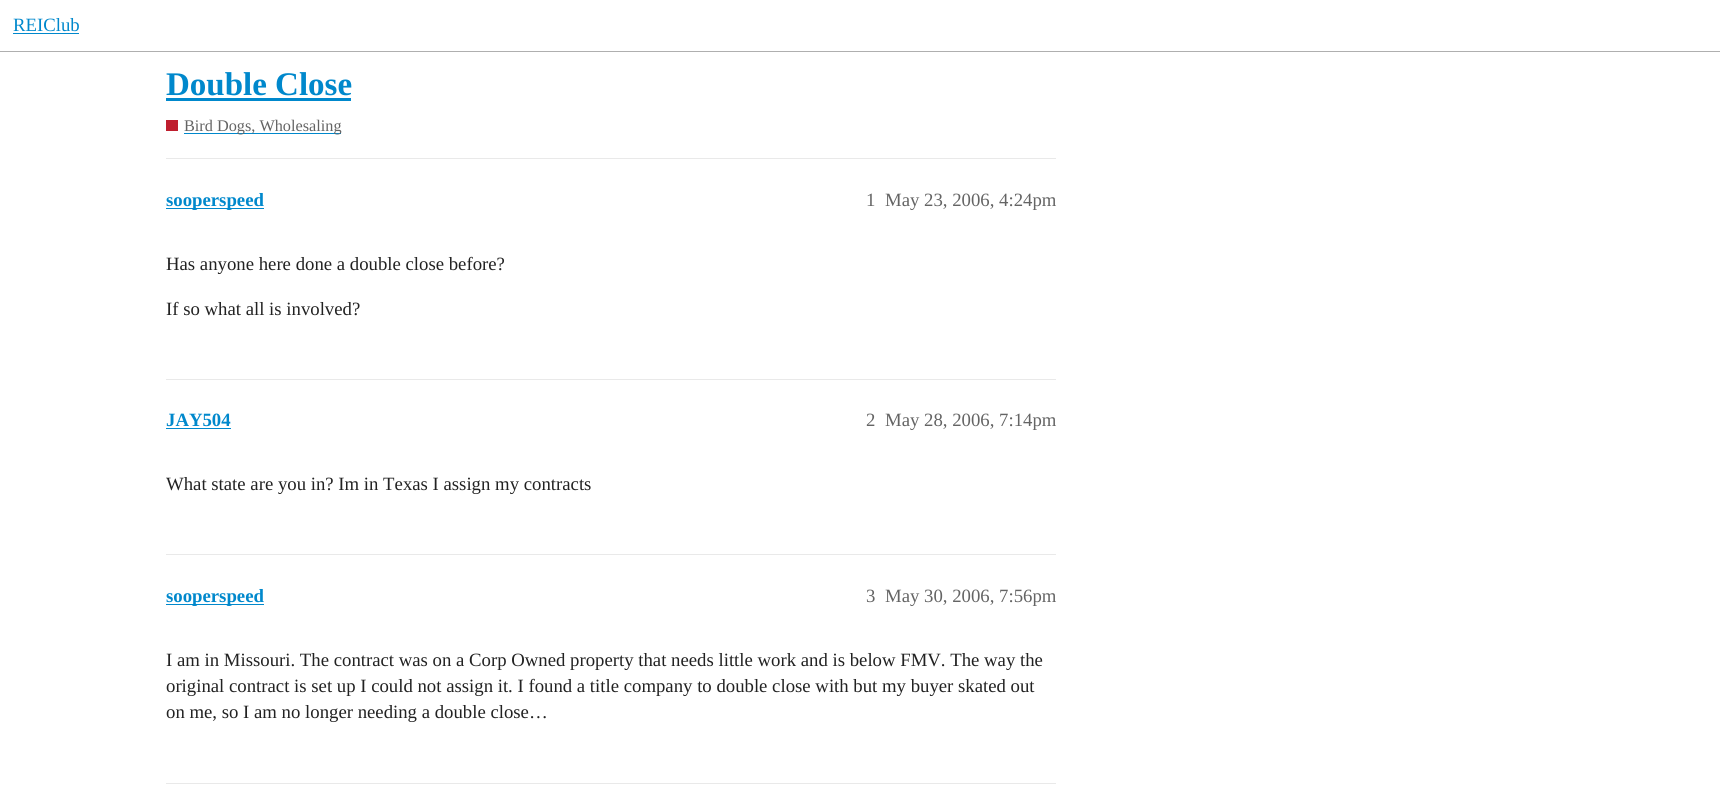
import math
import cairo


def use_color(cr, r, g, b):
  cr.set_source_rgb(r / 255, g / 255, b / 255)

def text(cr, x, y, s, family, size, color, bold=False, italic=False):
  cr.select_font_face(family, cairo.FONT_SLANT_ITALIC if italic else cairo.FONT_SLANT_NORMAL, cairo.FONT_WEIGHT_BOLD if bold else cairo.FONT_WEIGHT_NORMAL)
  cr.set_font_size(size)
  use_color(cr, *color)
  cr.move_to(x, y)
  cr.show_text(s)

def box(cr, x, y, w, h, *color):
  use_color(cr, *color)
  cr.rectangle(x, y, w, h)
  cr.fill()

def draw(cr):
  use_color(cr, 255, 255, 255)
  cr.paint()
  box(cr, 0, 51, 1720, 1, 175, 175, 175)
  box(cr, 13, 33, 66, 1, 0, 136, 204)
  box(cr, 166, 98, 185, 3, 0, 136, 204)
  box(cr, 166, 120, 12, 11, 191, 30, 46)
  box(cr, 184, 133, 157, 1, 0, 136, 204)
  box(cr, 166, 158, 890, 1, 233, 233, 233)
  box(cr, 166, 208, 98, 1, 0, 136, 204)
  box(cr, 166, 379, 890, 1, 233, 233, 233)
  box(cr, 166, 428, 65, 1, 0, 136, 204)
  box(cr, 166, 554, 890, 1, 233, 233, 233)
  box(cr, 166, 604, 98, 1, 0, 136, 204)
  box(cr, 166, 783, 890, 1, 233, 233, 233)
  text(cr, 13, 31, "REIClub", "Liberation Serif", 18.75, (0, 136, 204))
  text(cr, 166, 95, "Double Close", "Liberation Serif", 33, (0, 136, 204), bold=True)
  cr.save()
  cr.rectangle(184, 115, 157, 23)
  cr.clip()
  text(cr, 184, 131, "Bird Dogs, Wholesaling", "Liberation Serif", 16.25, (100, 100, 100))
  cr.restore()
  text(cr, 166, 206, "sooperspeed", "Liberation Serif", 18.75, (0, 136, 204), bold=True)
  text(cr, 866, 206, "1", "Liberation Serif", 18.75, (100, 100, 100))
  text(cr, 885, 206, "May 23, 2006, 4:24pm", "Liberation Serif", 18.75, (100, 100, 100))
  text(cr, 166, 270, "Has anyone here done a double close before?", "Liberation Serif", 18.75, (34, 34, 34))
  text(cr, 166, 315, "If so what all is involved?", "Liberation Serif", 18.75, (34, 34, 34))
  text(cr, 166, 426, "JAY504", "Liberation Serif", 18.75, (0, 136, 204), bold=True)
  text(cr, 866, 426, "2", "Liberation Serif", 18.75, (100, 100, 100))
  text(cr, 885, 426, "May 28, 2006, 7:14pm", "Liberation Serif", 18.75, (100, 100, 100))
  text(cr, 166, 490, "What state are you in? Im in Texas I assign my contracts", "Liberation Serif", 18.75, (34, 34, 34))
  text(cr, 166, 602, "sooperspeed", "Liberation Serif", 18.75, (0, 136, 204), bold=True)
  text(cr, 866, 602, "3", "Liberation Serif", 18.75, (100, 100, 100))
  text(cr, 885, 602, "May 30, 2006, 7:56pm", "Liberation Serif", 18.75, (100, 100, 100))
  text(cr, 166, 666, "I am in Missouri. The contract was on a Corp Owned property that needs little work and is below FMV. The way the", "Liberation Serif", 18.75, (34, 34, 34))
  text(cr, 166, 692, "original contract is set up I could not assign it. I found a title company to double close with but my buyer skated out", "Liberation Serif", 18.75, (34, 34, 34))
  text(cr, 166, 718, "on me, so I am no longer needing a double close…", "Liberation Serif", 18.75, (34, 34, 34))


surface = cairo.ImageSurface(cairo.FORMAT_RGB24, 1720, 789)
cr = cairo.Context(surface)
options = cairo.FontOptions()
options.set_hint_metrics(cairo.HINT_METRICS_OFF)
options.set_hint_style(cairo.HINT_STYLE_NONE)
cr.set_font_options(options)
cr.set_miter_limit(4)
draw(cr)
surface.write_to_png("out.png")
